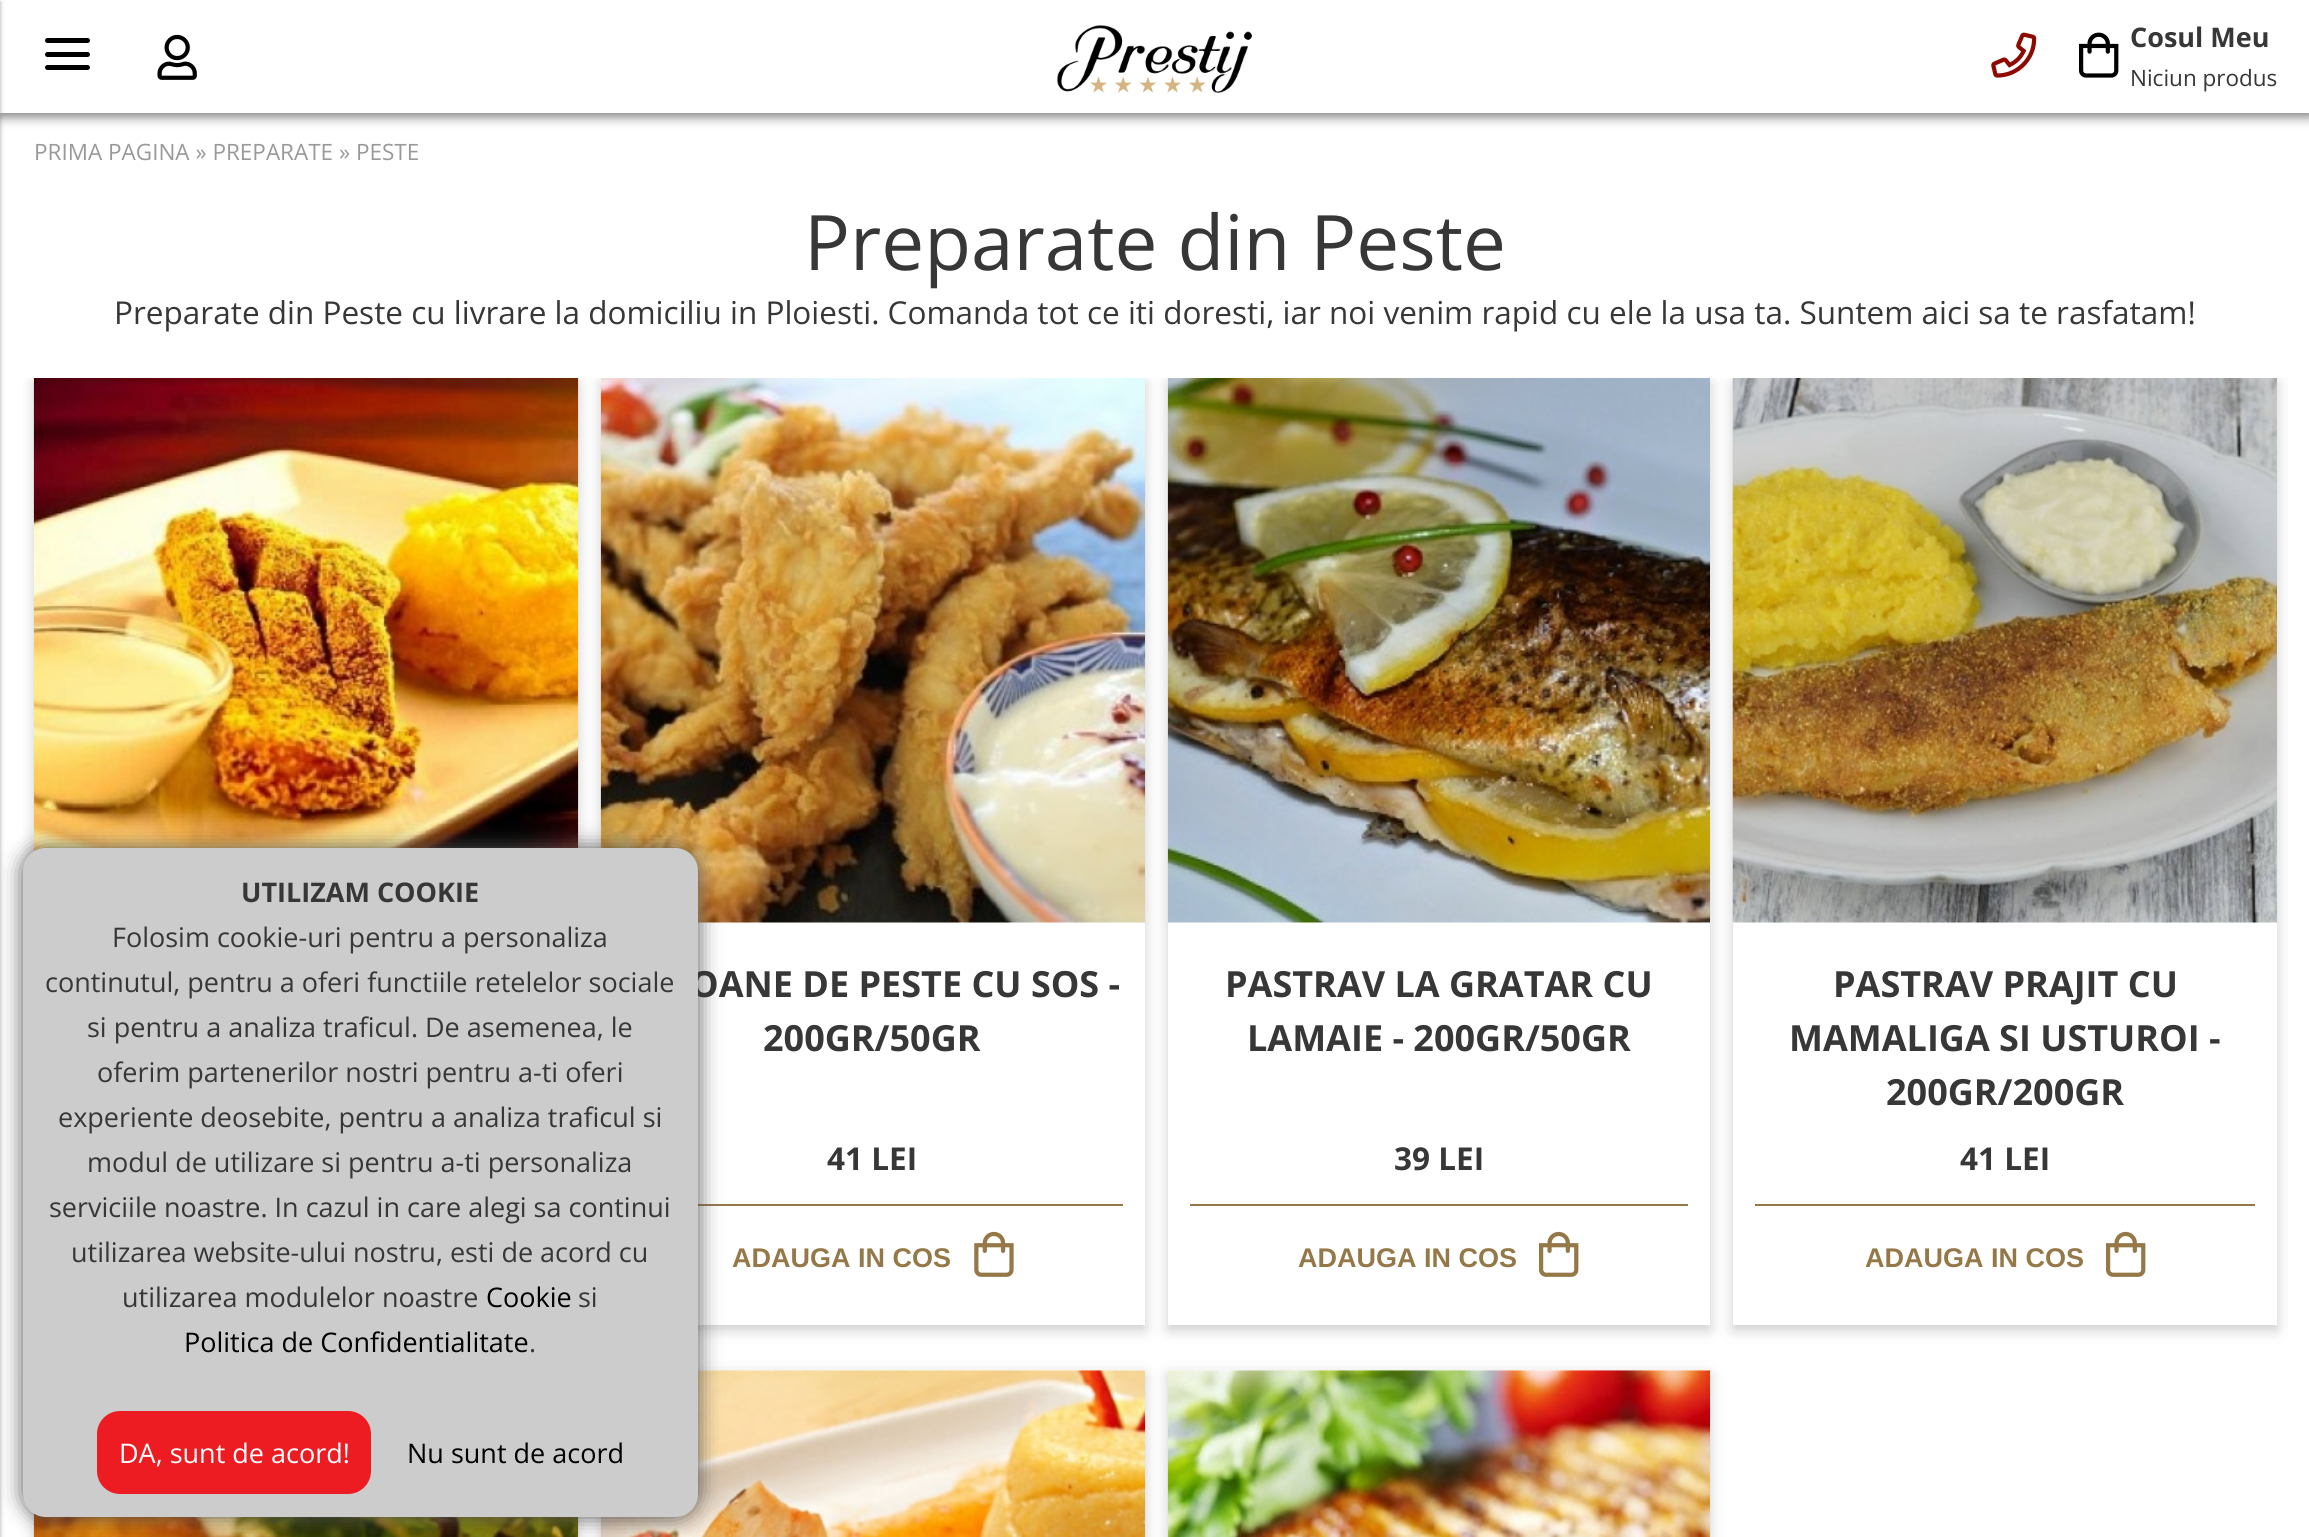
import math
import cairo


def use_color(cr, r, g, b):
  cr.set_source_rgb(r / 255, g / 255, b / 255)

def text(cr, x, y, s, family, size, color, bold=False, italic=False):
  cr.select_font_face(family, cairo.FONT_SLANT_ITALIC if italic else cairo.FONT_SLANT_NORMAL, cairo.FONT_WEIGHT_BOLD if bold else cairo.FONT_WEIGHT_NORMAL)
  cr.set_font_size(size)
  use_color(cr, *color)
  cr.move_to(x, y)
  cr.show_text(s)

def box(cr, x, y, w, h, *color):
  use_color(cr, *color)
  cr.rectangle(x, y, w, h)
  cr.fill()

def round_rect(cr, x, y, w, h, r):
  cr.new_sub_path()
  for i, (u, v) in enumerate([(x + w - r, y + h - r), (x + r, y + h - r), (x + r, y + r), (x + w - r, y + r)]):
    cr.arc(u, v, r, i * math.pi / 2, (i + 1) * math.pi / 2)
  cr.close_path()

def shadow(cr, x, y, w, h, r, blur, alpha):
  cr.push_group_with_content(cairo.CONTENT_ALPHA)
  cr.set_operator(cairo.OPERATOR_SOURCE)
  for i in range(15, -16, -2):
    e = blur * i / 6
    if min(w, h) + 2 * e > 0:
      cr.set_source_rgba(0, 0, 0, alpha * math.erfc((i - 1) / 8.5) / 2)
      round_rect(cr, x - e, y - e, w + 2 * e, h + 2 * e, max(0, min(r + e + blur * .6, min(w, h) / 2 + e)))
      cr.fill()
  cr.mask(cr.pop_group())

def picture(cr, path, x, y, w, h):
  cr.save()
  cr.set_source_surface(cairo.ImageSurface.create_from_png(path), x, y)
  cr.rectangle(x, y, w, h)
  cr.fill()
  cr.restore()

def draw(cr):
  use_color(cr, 255, 255, 255)
  cr.paint()
  use_color(cr, 0, 0, 0)
  shadow(cr, 0, 5, 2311, 112, 0, 5.5, 0.5)
  box(cr, 0, 0, 2309, 113, 255, 255, 255)
  use_color(cr, 0, 0, 0)
  shadow(cr, -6, 2, 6, 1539, 0, 2, 0.24)
  shadow(cr, -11, 2, 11, 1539, 0, 3.5, 0.12)
  use_color(cr, 0, 0, 0)
  round_rect(cr, 45, 38, 45, 5, 2.5)
  cr.fill()
  round_rect(cr, 45, 52, 45, 5, 2.5)
  cr.fill()
  round_rect(cr, 45, 65, 45, 5, 2.5)
  cr.fill()
  picture(cr, "img_01.png", 157, 34, 40, 46)
  picture(cr, "img_02.png", 1057, 25, 195, 68)
  picture(cr, "img_03.png", 1991, 32, 46, 46)
  picture(cr, "img_04.png", 2079, 32, 40, 46)
  cr.save()
  cr.rectangle(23, 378, 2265, 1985)
  cr.clip()
  use_color(cr, 0, 0, 0)
  shadow(cr, 34, 383, 544, 947, 0, 7, 0.2)
  cr.restore()
  picture(cr, "img_05.png", 33, 378, 546, 474)
  cr.save()
  cr.rectangle(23, 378, 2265, 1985)
  cr.clip()
  cr.set_fill_rule(cairo.FILL_RULE_EVEN_ODD)
  cr.new_path()
  cr.move_to(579, 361)
  cr.line_to(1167, 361)
  cr.line_to(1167, 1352)
  cr.line_to(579, 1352)
  cr.close_path()
  cr.move_to(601, 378)
  cr.line_to(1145, 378)
  cr.line_to(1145, 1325)
  cr.line_to(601, 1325)
  cr.close_path()
  cr.clip()
  use_color(cr, 0, 0, 0)
  shadow(cr, 601, 383, 544, 947, 0, 7, 0.2)
  cr.restore()
  picture(cr, "img_06.png", 600, 378, 546, 545)
  box(cr, 698, 1204, 425, 2, 148, 120, 72)
  picture(cr, "img_07.png", 974, 1231, 40, 46)
  cr.save()
  cr.rectangle(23, 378, 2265, 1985)
  cr.clip()
  cr.set_fill_rule(cairo.FILL_RULE_EVEN_ODD)
  cr.new_path()
  cr.move_to(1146, 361)
  cr.line_to(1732, 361)
  cr.line_to(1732, 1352)
  cr.line_to(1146, 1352)
  cr.close_path()
  cr.move_to(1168, 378)
  cr.line_to(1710, 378)
  cr.line_to(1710, 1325)
  cr.line_to(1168, 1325)
  cr.close_path()
  cr.clip()
  use_color(cr, 0, 0, 0)
  shadow(cr, 1168, 383, 542, 947, 0, 7, 0.2)
  cr.restore()
  picture(cr, "img_08.png", 1167, 378, 543, 545)
  box(cr, 1190, 1204, 498, 2, 148, 120, 72)
  picture(cr, "img_09.png", 1539, 1231, 40, 46)
  cr.save()
  cr.rectangle(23, 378, 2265, 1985)
  cr.clip()
  cr.set_fill_rule(cairo.FILL_RULE_EVEN_ODD)
  cr.new_path()
  cr.move_to(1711, 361)
  cr.line_to(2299, 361)
  cr.line_to(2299, 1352)
  cr.line_to(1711, 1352)
  cr.close_path()
  cr.move_to(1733, 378)
  cr.line_to(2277, 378)
  cr.line_to(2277, 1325)
  cr.line_to(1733, 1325)
  cr.close_path()
  cr.clip()
  use_color(cr, 0, 0, 0)
  shadow(cr, 1733, 383, 544, 947, 0, 7, 0.2)
  cr.restore()
  picture(cr, "img_10.png", 1732, 378, 545, 545)
  box(cr, 1755, 1204, 500, 2, 148, 120, 72)
  picture(cr, "img_09.png", 2106, 1231, 40, 46)
  use_color(cr, 0, 0, 0)
  shadow(cr, 34, 1375, 544, 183, 0, 7, 0.2)
  picture(cr, "img_11.png", 33, 1513, 546, 24)
  shadow(cr, 601, 1375, 544, 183, 0, 7, 0.2)
  box(cr, 698, 1370, 447, 1, 255, 255, 255)
  picture(cr, "img_12.png", 600, 1370, 546, 167)
  use_color(cr, 0, 0, 0)
  shadow(cr, 1168, 1375, 542, 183, 0, 7, 0.2)
  box(cr, 1168, 1370, 542, 1, 255, 255, 255)
  picture(cr, "img_13.png", 1167, 1370, 543, 167)
  use_color(cr, 85, 85, 85)
  shadow(cr, 23, 848, 675, 669, 23, 11, 1)
  text(cr, 2130, 47, "Cosul Meu", "Open Sans", 27, (55, 55, 55), bold=True)
  text(cr, 2130, 86, "Niciun produs", "Open Sans", 22.5, (55, 55, 55))
  text(cr, 34, 160, "PRIMA PAGINA » PREPARATE » PESTE", "Open Sans", 22.5, (153, 153, 153))
  text(cr, 804, 270, "Preparate din Peste", "Open Sans", 76.5, (55, 55, 55))
  text(cr, 114, 324, "Preparate din Peste cu livrare la domiciliu in Ploiesti. Comanda tot ce iti doresti, iar noi venim rapid cu ele la usa ta. Suntem aici sa te rasfatam!", "Open Sans", 31.5, (55, 55, 55))
  text(cr, 690, 997, "OANE DE PESTE CU SOS -", "Open Sans", 36, (55, 55, 55), bold=True)
  text(cr, 763, 1051, "200GR/50GR", "Open Sans", 36, (55, 55, 55), bold=True)
  text(cr, 827, 1170, "41 LEI", "Open Sans", 31.5, (55, 55, 55), bold=True)
  text(cr, 732, 1267, "ADAUGA IN COS", "Liberation Sans", 27, (148, 120, 72), bold=True)
  text(cr, 1225, 997, "PASTRAV LA GRATAR CU", "Open Sans", 36, (55, 55, 55), bold=True)
  text(cr, 1247, 1051, "LAMAIE - 200GR/50GR", "Open Sans", 36, (55, 55, 55), bold=True)
  text(cr, 1394, 1170, "39 LEI", "Open Sans", 31.5, (55, 55, 55), bold=True)
  text(cr, 1298, 1267, "ADAUGA IN COS", "Liberation Sans", 27, (148, 120, 72), bold=True)
  text(cr, 1833, 997, "PASTRAV PRAJIT CU", "Open Sans", 36, (55, 55, 55), bold=True)
  text(cr, 1789, 1051, "MAMALIGA SI USTUROI -", "Open Sans", 36, (55, 55, 55), bold=True)
  text(cr, 1886, 1105, "200GR/200GR", "Open Sans", 36, (55, 55, 55), bold=True)
  text(cr, 1960, 1170, "41 LEI", "Open Sans", 31.5, (55, 55, 55), bold=True)
  text(cr, 1865, 1267, "ADAUGA IN COS", "Liberation Sans", 27, (148, 120, 72), bold=True)
  use_color(cr, 204, 204, 204)
  round_rect(cr, 23, 848, 675, 669, 23)
  cr.fill()
  text(cr, 241, 902, "UTILIZAM COOKIE", "Open Sans", 27, (55, 55, 55), bold=True)
  text(cr, 112, 947, "Folosim cookie-uri pentru a personaliza", "Open Sans", 27, (55, 55, 55))
  text(cr, 45, 992, "continutul, pentru a oferi functiile retelelor sociale", "Open Sans", 27, (55, 55, 55))
  text(cr, 87, 1037, "si pentru a analiza traficul. De asemenea, le", "Open Sans", 27, (55, 55, 55))
  text(cr, 97, 1082, "oferim partenerilor nostri pentru a-ti oferi", "Open Sans", 27, (55, 55, 55))
  text(cr, 58, 1127, "experiente deosebite, pentru a analiza traficul si", "Open Sans", 27, (55, 55, 55))
  text(cr, 87, 1172, "modul de utilizare si pentru a-ti personaliza", "Open Sans", 27, (55, 55, 55))
  text(cr, 49, 1217, "serviciile noastre. In cazul in care alegi sa continui", "Open Sans", 27, (55, 55, 55))
  text(cr, 71, 1262, "utilizarea website-ului nostru, esti de acord cu", "Open Sans", 27, (55, 55, 55))
  text(cr, 122, 1307, "utilizarea modulelor noastre", "Open Sans", 27, (55, 55, 55))
  text(cr, 486, 1307, "Cookie", "Open Sans", 27, (0, 0, 0))
  text(cr, 578, 1307, "si", "Open Sans", 27, (55, 55, 55))
  text(cr, 184, 1352, "Politica de Confidentialitate", "Open Sans", 27, (0, 0, 0))
  text(cr, 529, 1352, ".", "Open Sans", 27, (55, 55, 55))
  use_color(cr, 237, 28, 35)
  round_rect(cr, 97, 1411, 274, 83, 23)
  cr.fill()
  text(cr, 119, 1463, "DA, sunt de acord!", "Open Sans", 27, (255, 255, 255))
  text(cr, 407, 1463, "Nu sunt de acord", "Open Sans", 27, (0, 0, 0))


surface = cairo.ImageSurface(cairo.FORMAT_RGB24, 2309, 1537)
cr = cairo.Context(surface)
options = cairo.FontOptions()
options.set_hint_metrics(cairo.HINT_METRICS_OFF)
options.set_hint_style(cairo.HINT_STYLE_NONE)
cr.set_font_options(options)
cr.set_miter_limit(4)
draw(cr)
surface.write_to_png("out.png")
